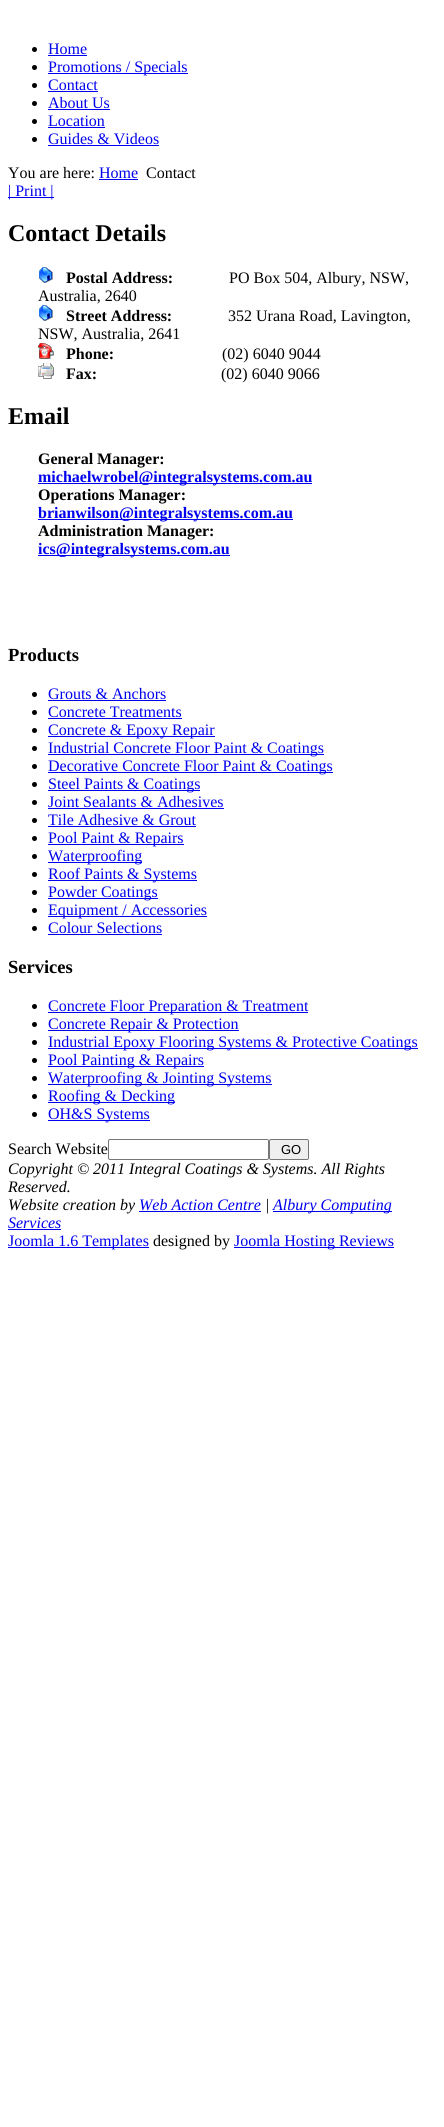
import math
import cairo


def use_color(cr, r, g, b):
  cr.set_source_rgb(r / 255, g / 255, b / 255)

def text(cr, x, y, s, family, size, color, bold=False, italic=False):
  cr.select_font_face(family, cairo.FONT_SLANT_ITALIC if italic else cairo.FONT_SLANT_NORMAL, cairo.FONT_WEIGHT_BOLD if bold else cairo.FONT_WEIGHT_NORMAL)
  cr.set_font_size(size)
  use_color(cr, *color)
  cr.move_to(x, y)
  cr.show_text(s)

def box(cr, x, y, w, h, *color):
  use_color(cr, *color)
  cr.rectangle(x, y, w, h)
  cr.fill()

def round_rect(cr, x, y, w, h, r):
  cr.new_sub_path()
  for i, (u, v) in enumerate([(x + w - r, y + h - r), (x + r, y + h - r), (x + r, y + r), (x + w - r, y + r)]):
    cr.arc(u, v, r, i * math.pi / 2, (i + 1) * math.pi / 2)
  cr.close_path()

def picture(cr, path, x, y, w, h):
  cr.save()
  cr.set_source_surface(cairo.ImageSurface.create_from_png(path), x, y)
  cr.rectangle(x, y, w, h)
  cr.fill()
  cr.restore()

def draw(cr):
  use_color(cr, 255, 255, 255)
  cr.paint()
  use_color(cr, 0, 0, 0)
  cr.arc(34.5, 49.5, 2.5, 0, 2 * math.pi)
  cr.fill()
  box(cr, 48, 55, 39, 1, 0, 0, 238)
  use_color(cr, 0, 0, 0)
  cr.arc(34.5, 67.5, 2.5, 0, 2 * math.pi)
  cr.fill()
  box(cr, 48, 73, 140, 1, 0, 0, 238)
  use_color(cr, 0, 0, 0)
  cr.arc(34.5, 85.5, 2.5, 0, 2 * math.pi)
  cr.fill()
  box(cr, 48, 91, 50, 1, 0, 0, 238)
  use_color(cr, 0, 0, 0)
  cr.arc(34.5, 103.5, 2.5, 0, 2 * math.pi)
  cr.fill()
  box(cr, 48, 109, 62, 1, 0, 0, 238)
  use_color(cr, 0, 0, 0)
  cr.arc(34.5, 121.5, 2.5, 0, 2 * math.pi)
  cr.fill()
  box(cr, 48, 127, 57, 1, 0, 0, 238)
  use_color(cr, 0, 0, 0)
  cr.arc(34.5, 139.5, 2.5, 0, 2 * math.pi)
  cr.fill()
  box(cr, 48, 145, 111, 1, 0, 0, 238)
  box(cr, 99, 179, 39, 1, 0, 0, 238)
  box(cr, 8, 197, 46, 1, 0, 0, 238)
  picture(cr, "img_01.png", 39, 267, 14, 16)
  picture(cr, "img_01.png", 39, 305, 14, 16)
  picture(cr, "img_02.png", 38, 343, 16, 16)
  picture(cr, "img_03.png", 38, 363, 16, 16)
  box(cr, 38, 483, 274, 1, 0, 0, 238)
  box(cr, 38, 519, 255, 1, 0, 0, 238)
  box(cr, 38, 555, 192, 1, 0, 0, 238)
  use_color(cr, 0, 0, 0)
  cr.arc(34.5, 694.5, 2.5, 0, 2 * math.pi)
  cr.fill()
  box(cr, 48, 700, 118, 1, 0, 0, 238)
  use_color(cr, 0, 0, 0)
  cr.arc(34.5, 712.5, 2.5, 0, 2 * math.pi)
  cr.fill()
  box(cr, 48, 718, 134, 1, 0, 0, 238)
  use_color(cr, 0, 0, 0)
  cr.arc(34.5, 730.5, 2.5, 0, 2 * math.pi)
  cr.fill()
  box(cr, 48, 736, 167, 1, 0, 0, 238)
  use_color(cr, 0, 0, 0)
  cr.arc(34.5, 748.5, 2.5, 0, 2 * math.pi)
  cr.fill()
  box(cr, 48, 754, 276, 1, 0, 0, 238)
  use_color(cr, 0, 0, 0)
  cr.arc(34.5, 766.5, 2.5, 0, 2 * math.pi)
  cr.fill()
  box(cr, 48, 772, 285, 1, 0, 0, 238)
  use_color(cr, 0, 0, 0)
  cr.arc(34.5, 784.5, 2.5, 0, 2 * math.pi)
  cr.fill()
  box(cr, 48, 790, 152, 1, 0, 0, 238)
  use_color(cr, 0, 0, 0)
  cr.arc(34.5, 802.5, 2.5, 0, 2 * math.pi)
  cr.fill()
  box(cr, 48, 808, 176, 1, 0, 0, 238)
  use_color(cr, 0, 0, 0)
  cr.arc(34.5, 820.5, 2.5, 0, 2 * math.pi)
  cr.fill()
  box(cr, 48, 826, 148, 1, 0, 0, 238)
  use_color(cr, 0, 0, 0)
  cr.arc(34.5, 838.5, 2.5, 0, 2 * math.pi)
  cr.fill()
  box(cr, 48, 844, 136, 1, 0, 0, 238)
  use_color(cr, 0, 0, 0)
  cr.arc(34.5, 856.5, 2.5, 0, 2 * math.pi)
  cr.fill()
  box(cr, 48, 862, 94, 1, 0, 0, 238)
  use_color(cr, 0, 0, 0)
  cr.arc(34.5, 874.5, 2.5, 0, 2 * math.pi)
  cr.fill()
  box(cr, 48, 880, 149, 1, 0, 0, 238)
  use_color(cr, 0, 0, 0)
  cr.arc(34.5, 892.5, 2.5, 0, 2 * math.pi)
  cr.fill()
  box(cr, 48, 898, 110, 1, 0, 0, 238)
  use_color(cr, 0, 0, 0)
  cr.arc(34.5, 910.5, 2.5, 0, 2 * math.pi)
  cr.fill()
  box(cr, 48, 916, 159, 1, 0, 0, 238)
  use_color(cr, 0, 0, 0)
  cr.arc(34.5, 928.5, 2.5, 0, 2 * math.pi)
  cr.fill()
  box(cr, 48, 934, 114, 1, 0, 0, 238)
  use_color(cr, 0, 0, 0)
  cr.arc(34.5, 1006.5, 2.5, 0, 2 * math.pi)
  cr.fill()
  box(cr, 48, 1012, 260, 1, 0, 0, 238)
  use_color(cr, 0, 0, 0)
  cr.arc(34.5, 1024.5, 2.5, 0, 2 * math.pi)
  cr.fill()
  box(cr, 48, 1030, 191, 1, 0, 0, 238)
  use_color(cr, 0, 0, 0)
  cr.arc(34.5, 1042.5, 2.5, 0, 2 * math.pi)
  cr.fill()
  box(cr, 48, 1048, 370, 1, 0, 0, 238)
  use_color(cr, 0, 0, 0)
  cr.arc(34.5, 1060.5, 2.5, 0, 2 * math.pi)
  cr.fill()
  box(cr, 48, 1066, 156, 1, 0, 0, 238)
  use_color(cr, 0, 0, 0)
  cr.arc(34.5, 1078.5, 2.5, 0, 2 * math.pi)
  cr.fill()
  box(cr, 48, 1084, 224, 1, 0, 0, 238)
  use_color(cr, 0, 0, 0)
  cr.arc(34.5, 1096.5, 2.5, 0, 2 * math.pi)
  cr.fill()
  box(cr, 48, 1102, 127, 1, 0, 0, 238)
  use_color(cr, 0, 0, 0)
  cr.arc(34.5, 1114.5, 2.5, 0, 2 * math.pi)
  cr.fill()
  box(cr, 48, 1120, 102, 1, 0, 0, 238)
  round_rect(cr, 108.5, 1139.5, 160, 20, 1.5)
  use_color(cr, 118, 118, 118)
  cr.set_line_width(1)
  cr.stroke()
  use_color(cr, 239, 239, 239)
  round_rect(cr, 269.5, 1139.5, 39, 20, 1.5)
  cr.fill_preserve()
  use_color(cr, 118, 118, 118)
  cr.stroke()
  box(cr, 139, 1211, 122, 1, 0, 0, 238)
  box(cr, 273, 1211, 119, 1, 0, 0, 238)
  box(cr, 8, 1229, 53, 1, 0, 0, 238)
  box(cr, 8, 1247, 141, 1, 0, 0, 238)
  box(cr, 234, 1247, 160, 1, 0, 0, 238)
  text(cr, 48, 54, "Home", "Liberation Serif", 16, (0, 0, 238))
  text(cr, 48, 72, "Promotions / Specials", "Liberation Serif", 16, (0, 0, 238))
  text(cr, 48, 90, "Contact", "Liberation Serif", 16, (0, 0, 238))
  text(cr, 48, 108, "About Us", "Liberation Serif", 16, (0, 0, 238))
  text(cr, 48, 126, "Location", "Liberation Serif", 16, (0, 0, 238))
  text(cr, 48, 144, "Guides & Videos", "Liberation Serif", 16, (0, 0, 238))
  text(cr, 8, 178, "You are here:", "Liberation Serif", 16, (0, 0, 0))
  text(cr, 99, 178, "Home", "Liberation Serif", 16, (0, 0, 238))
  text(cr, 146, 178, "Contact", "Liberation Serif", 16, (0, 0, 0))
  text(cr, 8, 196, "| Print |", "Liberation Serif", 16, (0, 0, 238))
  text(cr, 8, 241, "Contact Details", "Liberation Serif", 24, (0, 0, 0), bold=True)
  text(cr, 66, 283, "Postal Address:", "Liberation Serif", 16, (0, 0, 0), bold=True)
  text(cr, 229, 283, "PO Box 504, Albury, NSW,", "Liberation Serif", 16, (0, 0, 0))
  text(cr, 38, 301, "Australia, 2640", "Liberation Serif", 16, (0, 0, 0))
  text(cr, 66, 321, "Street Address:", "Liberation Serif", 16, (0, 0, 0), bold=True)
  text(cr, 228, 321, "352 Urana Road, Lavington,", "Liberation Serif", 16, (0, 0, 0))
  text(cr, 38, 339, "NSW, Australia, 2641", "Liberation Serif", 16, (0, 0, 0))
  text(cr, 66, 359, "Phone:", "Liberation Serif", 16, (0, 0, 0), bold=True)
  text(cr, 222, 359, "(02) 6040 9044", "Liberation Serif", 16, (0, 0, 0))
  text(cr, 66, 379, "Fax:", "Liberation Serif", 16, (0, 0, 0), bold=True)
  text(cr, 221, 379, "(02) 6040 9066", "Liberation Serif", 16, (0, 0, 0))
  text(cr, 8, 424, "Email", "Liberation Serif", 24, (0, 0, 0), bold=True)
  text(cr, 38, 464, "General Manager:", "Liberation Serif", 16, (0, 0, 0), bold=True)
  text(cr, 38, 482, "michaelwrobel@integralsystems.com.au", "Liberation Serif", 16, (0, 0, 238), bold=True)
  text(cr, 38, 500, "Operations Manager:", "Liberation Serif", 16, (0, 0, 0), bold=True)
  text(cr, 38, 518, "brianwilson@integralsystems.com.au", "Liberation Serif", 16, (0, 0, 238), bold=True)
  text(cr, 38, 536, "Administration Manager:", "Liberation Serif", 16, (0, 0, 0), bold=True)
  text(cr, 38, 554, "ics@integralsystems.com.au", "Liberation Serif", 16, (0, 0, 238), bold=True)
  text(cr, 8, 661, "Products", "Liberation Serif", 18.5, (0, 0, 0), bold=True)
  text(cr, 48, 699, "Grouts & Anchors", "Liberation Serif", 16, (0, 0, 238))
  text(cr, 48, 717, "Concrete Treatments", "Liberation Serif", 16, (0, 0, 238))
  text(cr, 48, 735, "Concrete & Epoxy Repair", "Liberation Serif", 16, (0, 0, 238))
  text(cr, 48, 753, "Industrial Concrete Floor Paint & Coatings", "Liberation Serif", 16, (0, 0, 238))
  text(cr, 48, 771, "Decorative Concrete Floor Paint & Coatings", "Liberation Serif", 16, (0, 0, 238))
  text(cr, 48, 789, "Steel Paints & Coatings", "Liberation Serif", 16, (0, 0, 238))
  text(cr, 48, 807, "Joint Sealants & Adhesives", "Liberation Serif", 16, (0, 0, 238))
  text(cr, 48, 825, "Tile Adhesive & Grout", "Liberation Serif", 16, (0, 0, 238))
  text(cr, 48, 843, "Pool Paint & Repairs", "Liberation Serif", 16, (0, 0, 238))
  text(cr, 48, 861, "Waterproofing", "Liberation Serif", 16, (0, 0, 238))
  text(cr, 48, 879, "Roof Paints & Systems", "Liberation Serif", 16, (0, 0, 238))
  text(cr, 48, 897, "Powder Coatings", "Liberation Serif", 16, (0, 0, 238))
  text(cr, 48, 915, "Equipment / Accessories", "Liberation Serif", 16, (0, 0, 238))
  text(cr, 48, 933, "Colour Selections", "Liberation Serif", 16, (0, 0, 238))
  text(cr, 8, 973, "Services", "Liberation Serif", 18.5, (0, 0, 0), bold=True)
  text(cr, 48, 1011, "Concrete Floor Preparation & Treatment", "Liberation Serif", 16, (0, 0, 238))
  text(cr, 48, 1029, "Concrete Repair & Protection", "Liberation Serif", 16, (0, 0, 238))
  text(cr, 48, 1047, "Industrial Epoxy Flooring Systems & Protective Coatings", "Liberation Serif", 16, (0, 0, 238))
  text(cr, 48, 1065, "Pool Painting & Repairs", "Liberation Serif", 16, (0, 0, 238))
  text(cr, 48, 1083, "Waterproofing & Jointing Systems", "Liberation Serif", 16, (0, 0, 238))
  text(cr, 48, 1101, "Roofing & Decking", "Liberation Serif", 16, (0, 0, 238))
  text(cr, 48, 1119, "OH&S Systems", "Liberation Serif", 16, (0, 0, 238))
  text(cr, 8, 1154, "Search Website", "Liberation Serif", 16, (0, 0, 0))
  text(cr, 281, 1154, "GO", "Liberation Sans", 13, (0, 0, 0))
  text(cr, 8, 1174, "Copyright © 2011 Integral Coatings & Systems. All Rights", "Liberation Serif", 16, (0, 0, 0), italic=True)
  text(cr, 8, 1192, "Reserved.", "Liberation Serif", 16, (0, 0, 0), italic=True)
  text(cr, 8, 1210, "Website creation by", "Liberation Serif", 16, (0, 0, 0), italic=True)
  text(cr, 139, 1210, "Web Action Centre", "Liberation Serif", 16, (0, 0, 238), italic=True)
  text(cr, 265, 1210, "|", "Liberation Serif", 16, (0, 0, 0), italic=True)
  text(cr, 273, 1210, "Albury Computing", "Liberation Serif", 16, (0, 0, 238), italic=True)
  text(cr, 8, 1228, "Services", "Liberation Serif", 16, (0, 0, 238), italic=True)
  text(cr, 8, 1246, "Joomla 1.6 Templates", "Liberation Serif", 16, (0, 0, 238))
  text(cr, 153, 1246, "designed by", "Liberation Serif", 16, (0, 0, 0))
  text(cr, 234, 1246, "Joomla Hosting Reviews", "Liberation Serif", 16, (0, 0, 238))


surface = cairo.ImageSurface(cairo.FORMAT_RGB24, 444, 2127)
cr = cairo.Context(surface)
options = cairo.FontOptions()
options.set_hint_metrics(cairo.HINT_METRICS_OFF)
options.set_hint_style(cairo.HINT_STYLE_NONE)
cr.set_font_options(options)
cr.set_miter_limit(4)
draw(cr)
surface.write_to_png("out.png")
